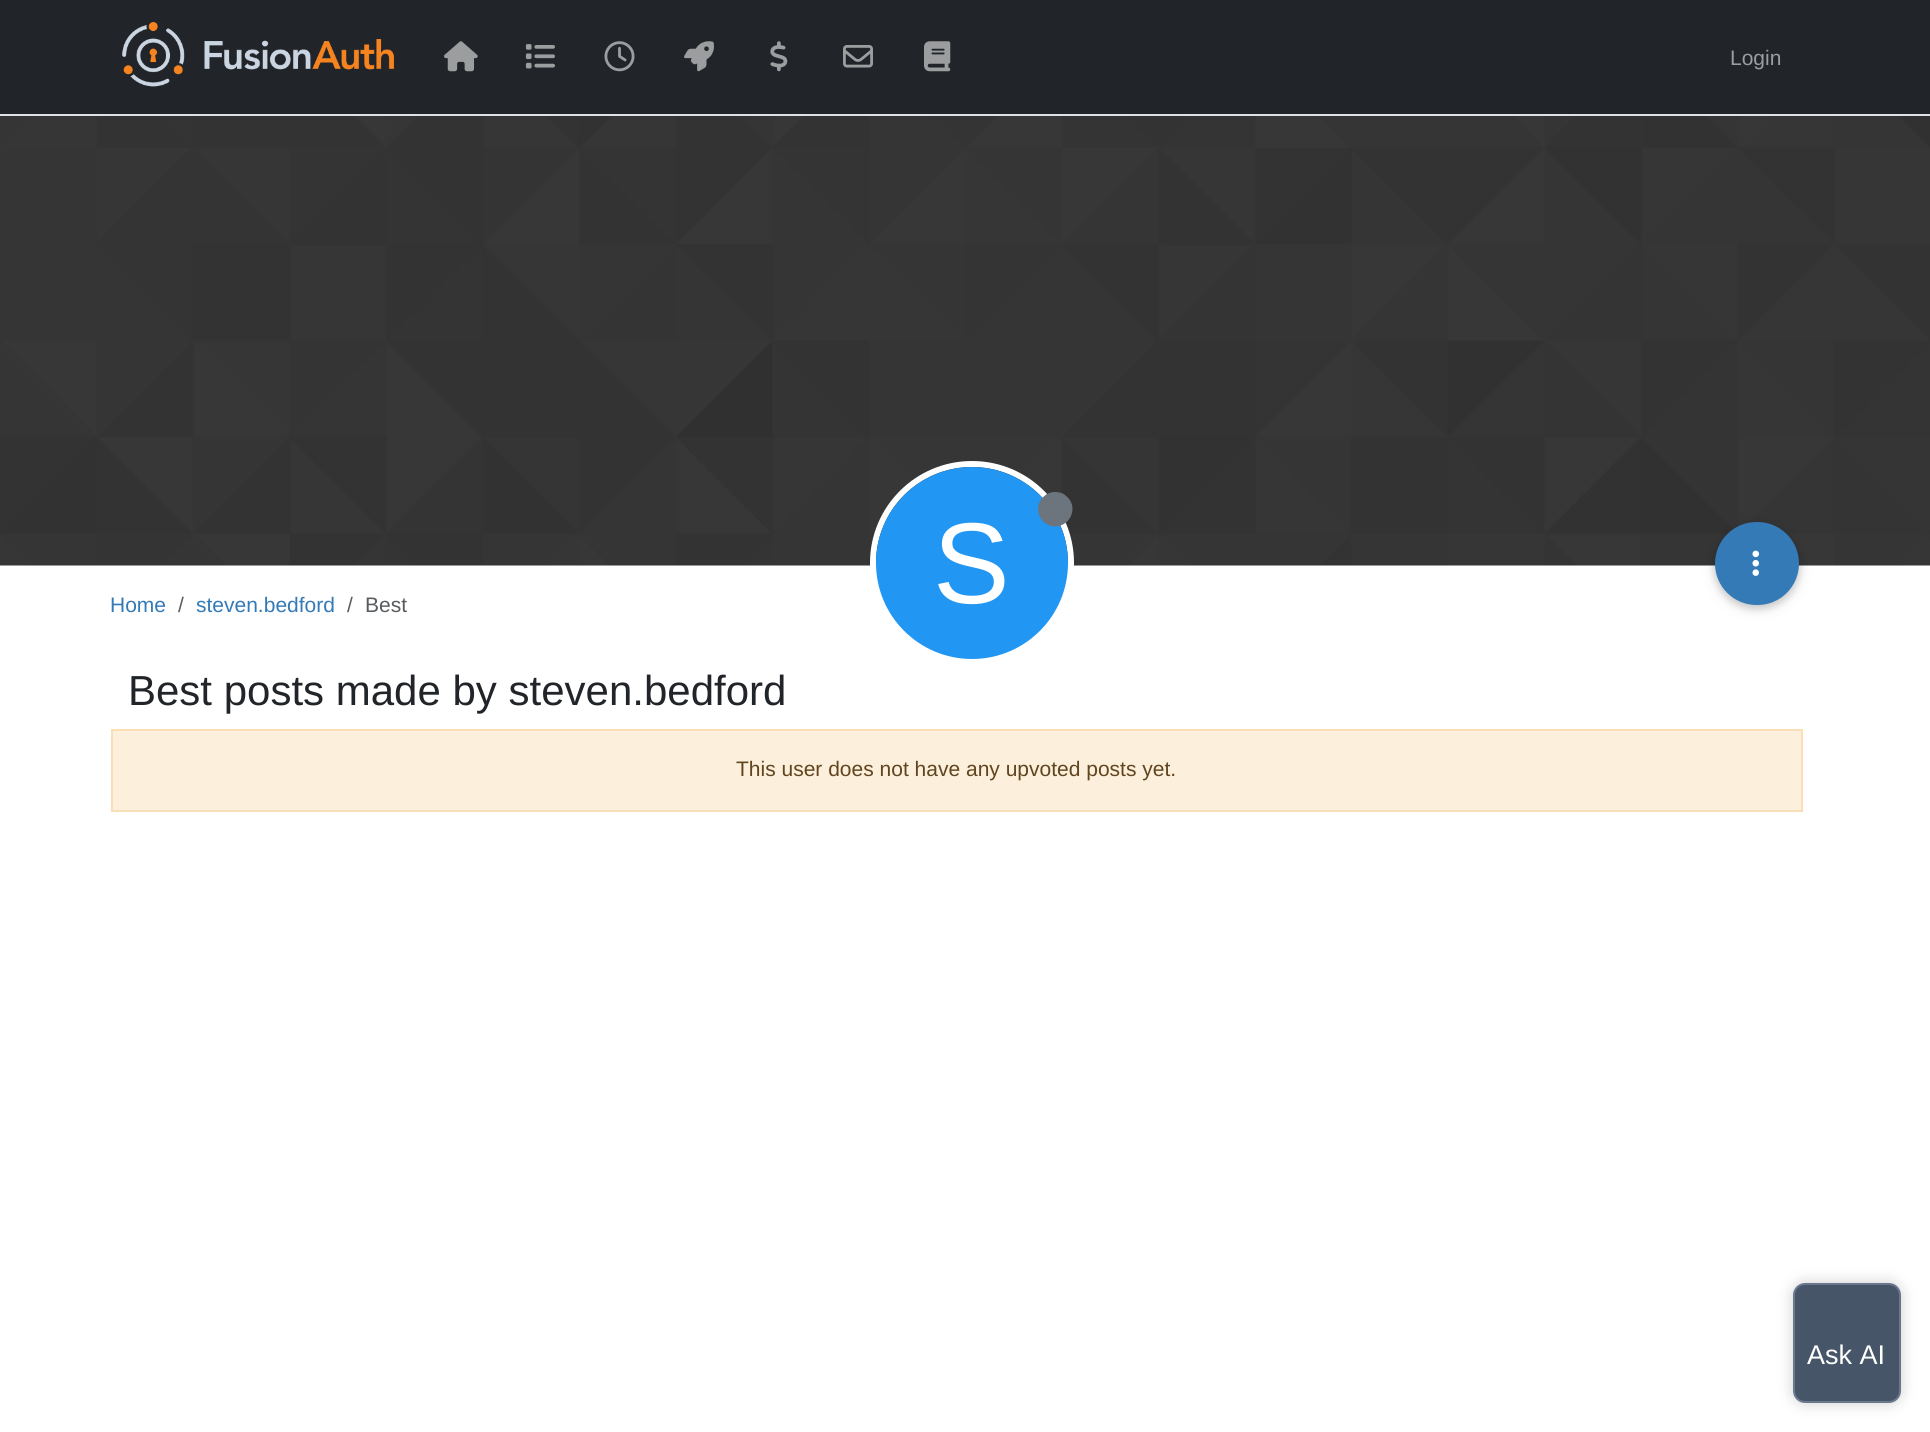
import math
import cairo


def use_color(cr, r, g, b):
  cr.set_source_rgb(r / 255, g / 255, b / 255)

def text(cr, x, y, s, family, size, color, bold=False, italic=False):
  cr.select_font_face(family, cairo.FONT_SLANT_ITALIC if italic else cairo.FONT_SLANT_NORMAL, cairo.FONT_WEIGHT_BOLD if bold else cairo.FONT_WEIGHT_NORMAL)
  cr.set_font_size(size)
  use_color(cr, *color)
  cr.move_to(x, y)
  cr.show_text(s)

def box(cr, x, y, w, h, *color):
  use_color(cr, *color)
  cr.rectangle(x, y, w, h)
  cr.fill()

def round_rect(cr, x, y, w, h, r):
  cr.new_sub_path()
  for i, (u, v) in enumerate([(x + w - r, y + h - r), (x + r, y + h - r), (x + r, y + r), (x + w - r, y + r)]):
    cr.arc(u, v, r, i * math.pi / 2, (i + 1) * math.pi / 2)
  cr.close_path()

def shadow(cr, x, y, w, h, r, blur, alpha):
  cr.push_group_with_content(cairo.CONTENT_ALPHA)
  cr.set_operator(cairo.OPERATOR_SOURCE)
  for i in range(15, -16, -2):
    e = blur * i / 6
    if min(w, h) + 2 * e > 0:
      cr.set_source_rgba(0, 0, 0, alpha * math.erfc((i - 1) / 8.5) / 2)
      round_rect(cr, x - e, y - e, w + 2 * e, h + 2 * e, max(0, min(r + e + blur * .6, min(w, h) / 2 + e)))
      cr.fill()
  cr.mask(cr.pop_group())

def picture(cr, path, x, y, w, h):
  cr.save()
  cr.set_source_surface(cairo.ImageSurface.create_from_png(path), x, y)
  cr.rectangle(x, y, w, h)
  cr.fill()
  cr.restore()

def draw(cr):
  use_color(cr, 255, 255, 255)
  cr.paint()
  box(cr, 0, 0, 1930, 114, 33, 37, 41)
  box(cr, 0, 114, 1930, 2, 222, 226, 230)
  picture(cr, "img_01.png", 122, 22, 272, 65)
  picture(cr, "img_02.png", 444, 41, 34, 31)
  picture(cr, "img_03.png", 525, 44, 30, 25)
  picture(cr, "img_04.png", 604, 41, 31, 31)
  picture(cr, "img_05.png", 684, 41, 30, 31)
  picture(cr, "img_06.png", 770, 41, 18, 31)
  picture(cr, "img_07.png", 843, 45, 30, 23)
  picture(cr, "img_08.png", 924, 41, 27, 31)
  picture(cr, "img_09.png", 0, 116, 1930, 450)
  cr.arc(972, 563, 99, 0, 2 * math.pi)
  use_color(cr, 255, 255, 255)
  cr.set_line_width(6)
  cr.stroke()
  use_color(cr, 33, 150, 243)
  cr.arc(972, 563, 96, 0, 2 * math.pi)
  cr.fill()
  use_color(cr, 108, 117, 125)
  cr.new_path()
  cr.move_to(1055, 526.5)
  cr.curve_to(1071.5, 526, 1079, 505.5, 1065.5, 495.5)
  cr.curve_to(1063, 493, 1059, 492, 1055, 492)
  cr.curve_to(1051.5, 492, 1047.5, 493, 1045, 495.5)
  cr.curve_to(1031.5, 505.5, 1039, 526, 1055, 526.5)
  cr.close_path()
  cr.fill()
  use_color(cr, 0, 0, 0)
  shadow(cr, 1715, 525, 84, 83, 41.5, 7.5, 0.12)
  shadow(cr, 1715, 525, 84, 83, 41.5, 4, 0.16)
  use_color(cr, 51, 122, 183)
  round_rect(cr, 1715, 522, 84, 83, 41.5)
  cr.fill()
  picture(cr, "img_10.png", 1752, 550, 7, 26)
  use_color(cr, 252, 239, 220)
  cr.rectangle(112, 730, 1690, 81)
  cr.fill_preserve()
  use_color(cr, 249, 222, 184)
  cr.set_line_width(2)
  cr.stroke()
  use_color(cr, 0, 0, 0)
  shadow(cr, 1793, 1283, 108, 120, 12, 7.5, 0.2)
  use_color(cr, 71, 85, 105)
  round_rect(cr, 1794, 1284, 106, 118, 11)
  cr.fill_preserve()
  use_color(cr, 106, 120, 142)
  cr.stroke()
  text(cr, 1730, 65, "Login", "Liberation Sans", 21, (155, 157, 159))
  text(cr, 110, 612, "Home", "Liberation Sans", 21, (51, 122, 183))
  text(cr, 178, 612, "/", "Liberation Sans", 21, (89, 92, 95))
  text(cr, 196, 612, "steven.bedford", "Liberation Sans", 21, (51, 122, 183))
  text(cr, 347, 612, "/", "Liberation Sans", 21, (89, 92, 95))
  text(cr, 365, 612, "Best", "Liberation Sans", 21, (89, 92, 95))
  text(cr, 933, 603, "S", "Liberation Sans", 115, (255, 255, 255))
  text(cr, 128, 705, "Best posts made by steven.bedford", "Liberation Sans", 42, (33, 37, 41))
  text(cr, 736, 776, "This user does not have any upvoted posts yet.", "Liberation Sans", 21, (96, 69, 31))
  text(cr, 1807, 1364, "Ask AI", "Liberation Sans", 27, (255, 255, 255))


surface = cairo.ImageSurface(cairo.FORMAT_RGB24, 1930, 1432)
cr = cairo.Context(surface)
options = cairo.FontOptions()
options.set_hint_metrics(cairo.HINT_METRICS_OFF)
options.set_hint_style(cairo.HINT_STYLE_NONE)
cr.set_font_options(options)
cr.set_miter_limit(4)
draw(cr)
surface.write_to_png("out.png")
